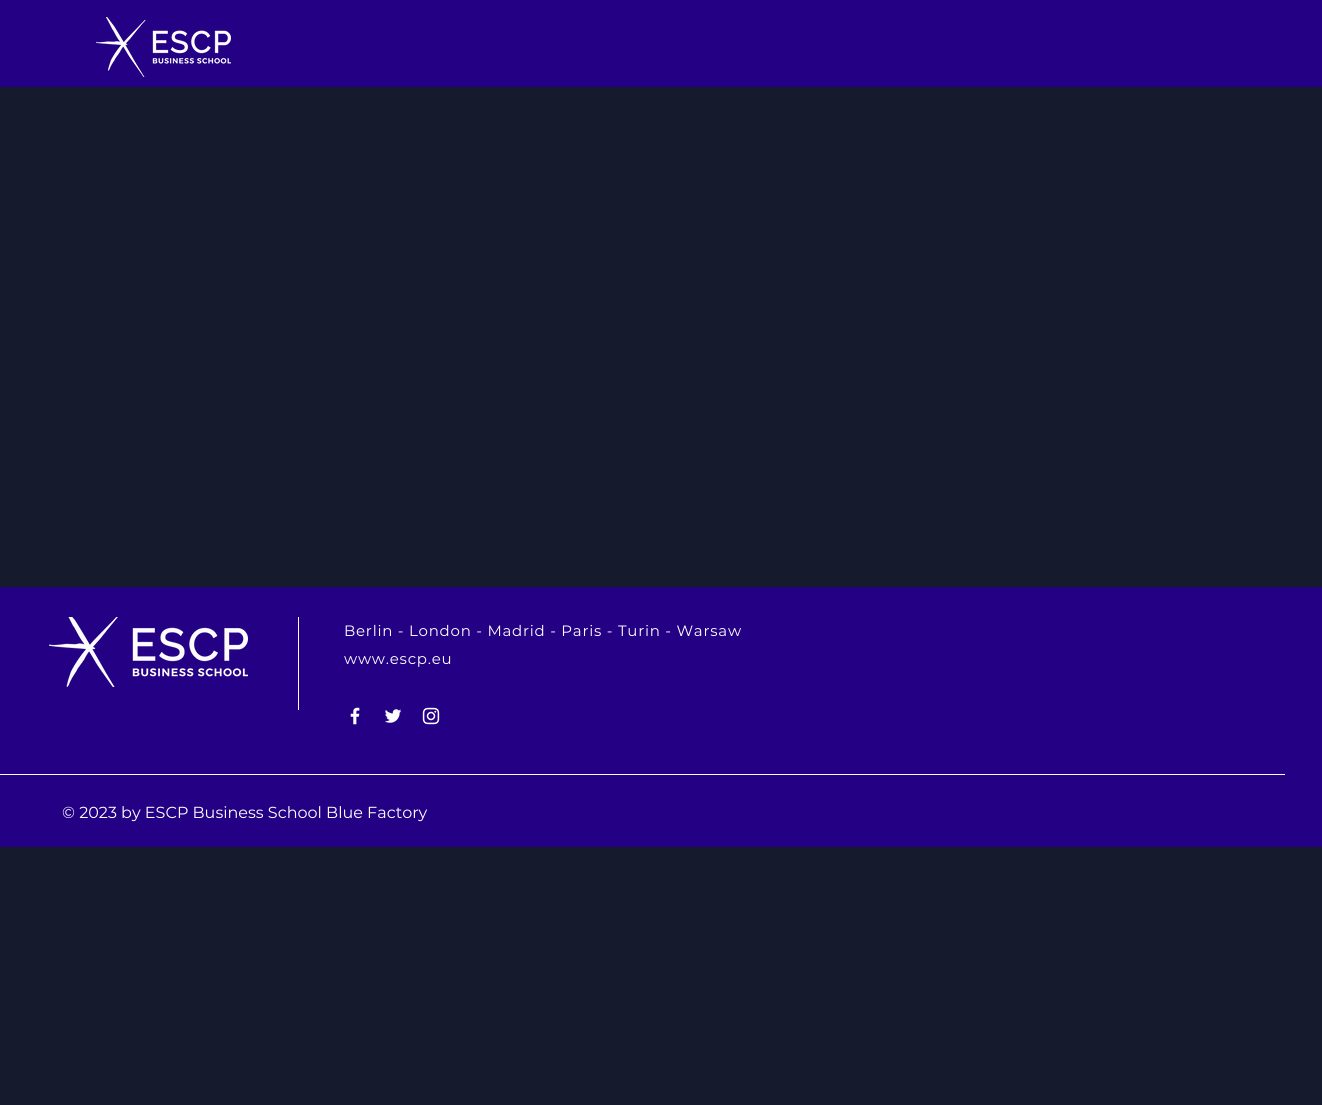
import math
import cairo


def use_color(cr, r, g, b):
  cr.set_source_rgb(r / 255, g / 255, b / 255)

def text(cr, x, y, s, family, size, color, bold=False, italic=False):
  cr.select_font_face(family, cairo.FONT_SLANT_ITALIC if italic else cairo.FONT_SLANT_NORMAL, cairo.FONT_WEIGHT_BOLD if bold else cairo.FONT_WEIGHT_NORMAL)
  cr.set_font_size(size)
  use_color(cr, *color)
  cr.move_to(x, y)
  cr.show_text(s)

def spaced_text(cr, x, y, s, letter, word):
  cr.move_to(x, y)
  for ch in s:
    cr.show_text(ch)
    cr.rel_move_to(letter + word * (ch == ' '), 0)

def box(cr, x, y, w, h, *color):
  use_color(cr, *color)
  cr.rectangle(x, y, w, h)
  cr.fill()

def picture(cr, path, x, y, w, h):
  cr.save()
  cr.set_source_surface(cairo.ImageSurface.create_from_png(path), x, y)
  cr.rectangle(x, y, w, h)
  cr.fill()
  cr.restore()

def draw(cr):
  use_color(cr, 21, 26, 44)
  cr.paint()
  box(cr, 0, 0, 1322, 87, 36, 0, 133)
  picture(cr, "img_01.png", 96, 17, 135, 60)
  box(cr, 0, 587, 1322, 260, 36, 0, 133)
  picture(cr, "img_02.png", 49, 617, 199, 70)
  box(cr, 298, 617, 1, 93, 255, 255, 255)
  picture(cr, "img_03.png", 350, 707, 10, 18)
  picture(cr, "img_04.png", 385, 709, 17, 14)
  picture(cr, "img_05.png", 422, 707, 18, 18)
  box(cr, 0, 774, 1285, 1, 255, 255, 255)
  cr.select_font_face("Montserrat")
  cr.set_font_size(15)
  spaced_text(cr, 344, 636, "Berlin - London - Madrid - Paris - Turin - Warsaw", 0.75, 0)
  spaced_text(cr, 344, 664, "www.escp.eu", 0.75, 0)
  text(cr, 62, 818, "© 2023 by ESCP Business School Blue Factory", "Montserrat", 16, (255, 255, 255))


surface = cairo.ImageSurface(cairo.FORMAT_RGB24, 1322, 1105)
cr = cairo.Context(surface)
options = cairo.FontOptions()
options.set_hint_metrics(cairo.HINT_METRICS_OFF)
options.set_hint_style(cairo.HINT_STYLE_NONE)
cr.set_font_options(options)
cr.set_miter_limit(4)
draw(cr)
surface.write_to_png("out.png")
